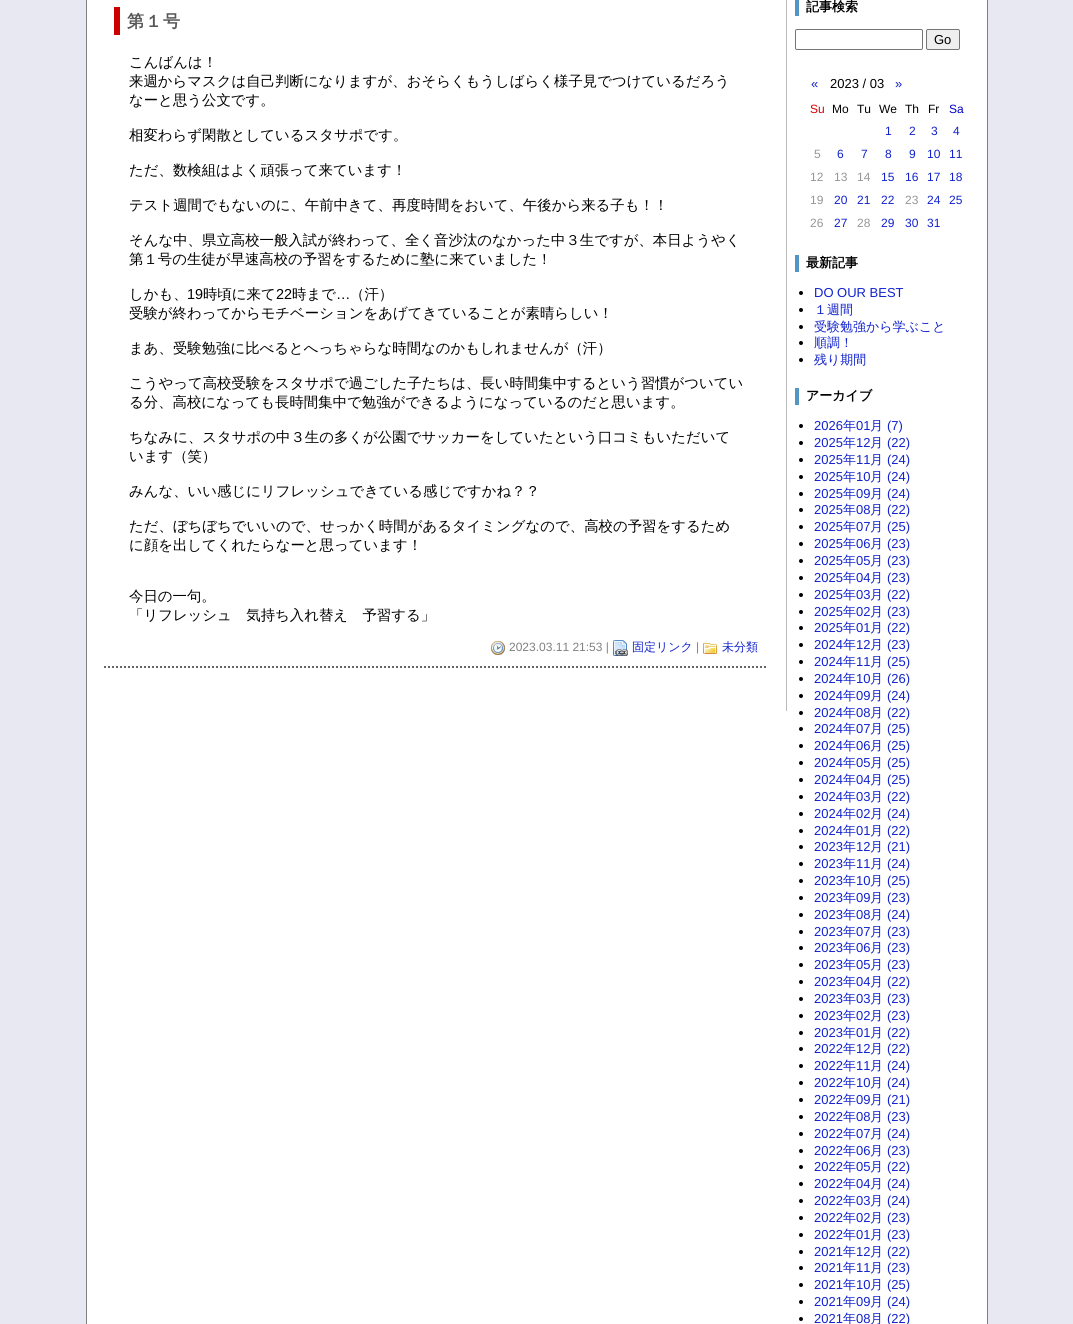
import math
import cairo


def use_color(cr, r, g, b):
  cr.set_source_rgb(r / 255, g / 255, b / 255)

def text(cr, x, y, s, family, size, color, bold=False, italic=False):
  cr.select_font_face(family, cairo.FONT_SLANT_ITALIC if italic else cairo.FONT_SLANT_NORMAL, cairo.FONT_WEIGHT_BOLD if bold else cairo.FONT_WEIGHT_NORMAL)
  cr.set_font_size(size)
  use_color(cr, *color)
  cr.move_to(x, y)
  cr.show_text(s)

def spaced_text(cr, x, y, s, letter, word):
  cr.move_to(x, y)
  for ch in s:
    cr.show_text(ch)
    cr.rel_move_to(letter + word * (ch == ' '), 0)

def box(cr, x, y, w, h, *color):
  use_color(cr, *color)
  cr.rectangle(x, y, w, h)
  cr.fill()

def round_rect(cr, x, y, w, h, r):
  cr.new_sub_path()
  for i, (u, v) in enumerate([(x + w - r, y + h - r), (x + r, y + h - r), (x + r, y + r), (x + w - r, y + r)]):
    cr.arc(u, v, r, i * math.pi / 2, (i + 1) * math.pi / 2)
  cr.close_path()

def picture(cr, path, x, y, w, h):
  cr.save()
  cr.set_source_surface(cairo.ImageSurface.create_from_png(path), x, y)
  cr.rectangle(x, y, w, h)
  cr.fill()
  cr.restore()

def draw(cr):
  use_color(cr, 231, 232, 242)
  cr.paint()
  box(cr, 87, 0, 900, 1324, 255, 255, 255)
  box(cr, 987, 0, 1, 1324, 128, 128, 128)
  box(cr, 86, 0, 1, 1324, 128, 128, 128)
  box(cr, 786, 0, 1, 711, 187, 187, 187)
  cr.new_path()
  cr.move_to(104, 667)
  cr.line_to(768, 667)
  use_color(cr, 102, 102, 102)
  cr.set_dash([2, 2])
  cr.stroke()
  box(cr, 114, 7, 6, 28, 204, 0, 0)
  picture(cr, "img_01.png", 491, 641, 14, 14)
  picture(cr, "img_02.png", 613, 640, 15, 16)
  picture(cr, "img_03.png", 703, 643, 14, 11)
  box(cr, 795, 0, 4, 16, 83, 150, 198)
  round_rect(cr, 795.5, 29.5, 127, 20, 1.5)
  use_color(cr, 118, 118, 118)
  cr.set_line_width(1)
  cr.set_dash([])
  cr.stroke()
  use_color(cr, 239, 239, 239)
  round_rect(cr, 926.5, 29.5, 33, 20, 1.5)
  cr.fill_preserve()
  use_color(cr, 118, 118, 118)
  cr.stroke()
  box(cr, 795, 255, 4, 17, 83, 150, 198)
  use_color(cr, 0, 0, 0)
  cr.arc(801, 293, 2, 0, 2 * math.pi)
  cr.fill()
  cr.arc(801, 310, 2, 0, 2 * math.pi)
  cr.fill()
  cr.arc(801, 327, 2, 0, 2 * math.pi)
  cr.fill()
  cr.arc(801, 343, 2, 0, 2 * math.pi)
  cr.fill()
  cr.arc(801, 360, 2, 0, 2 * math.pi)
  cr.fill()
  box(cr, 795, 388, 4, 17, 83, 150, 198)
  use_color(cr, 0, 0, 0)
  cr.arc(801, 426, 2, 0, 2 * math.pi)
  cr.fill()
  cr.arc(801, 443, 2, 0, 2 * math.pi)
  cr.fill()
  cr.arc(801, 460, 2, 0, 2 * math.pi)
  cr.fill()
  cr.arc(801, 477, 2, 0, 2 * math.pi)
  cr.fill()
  cr.arc(801, 494, 2, 0, 2 * math.pi)
  cr.fill()
  cr.arc(801, 510, 2, 0, 2 * math.pi)
  cr.fill()
  cr.arc(801, 527, 2, 0, 2 * math.pi)
  cr.fill()
  cr.arc(801, 544, 2, 0, 2 * math.pi)
  cr.fill()
  cr.arc(801, 561, 2, 0, 2 * math.pi)
  cr.fill()
  cr.arc(801, 578, 2, 0, 2 * math.pi)
  cr.fill()
  cr.arc(801, 595, 2, 0, 2 * math.pi)
  cr.fill()
  cr.arc(801, 612, 2, 0, 2 * math.pi)
  cr.fill()
  cr.arc(801, 628, 2, 0, 2 * math.pi)
  cr.fill()
  cr.arc(801, 645, 2, 0, 2 * math.pi)
  cr.fill()
  cr.arc(801, 662, 2, 0, 2 * math.pi)
  cr.fill()
  cr.arc(801, 679, 2, 0, 2 * math.pi)
  cr.fill()
  cr.arc(801, 696, 2, 0, 2 * math.pi)
  cr.fill()
  cr.arc(801, 713, 2, 0, 2 * math.pi)
  cr.fill()
  cr.arc(801, 729, 2, 0, 2 * math.pi)
  cr.fill()
  cr.arc(801, 746, 2, 0, 2 * math.pi)
  cr.fill()
  cr.arc(801, 763, 2, 0, 2 * math.pi)
  cr.fill()
  cr.arc(801, 780, 2, 0, 2 * math.pi)
  cr.fill()
  cr.arc(801, 797, 2, 0, 2 * math.pi)
  cr.fill()
  cr.arc(801, 814, 2, 0, 2 * math.pi)
  cr.fill()
  cr.arc(801, 831, 2, 0, 2 * math.pi)
  cr.fill()
  cr.arc(801, 847, 2, 0, 2 * math.pi)
  cr.fill()
  cr.arc(801, 864, 2, 0, 2 * math.pi)
  cr.fill()
  cr.arc(801, 881, 2, 0, 2 * math.pi)
  cr.fill()
  cr.arc(801, 898, 2, 0, 2 * math.pi)
  cr.fill()
  cr.arc(801, 915, 2, 0, 2 * math.pi)
  cr.fill()
  cr.arc(801, 932, 2, 0, 2 * math.pi)
  cr.fill()
  cr.arc(801, 948, 2, 0, 2 * math.pi)
  cr.fill()
  cr.arc(801, 965, 2, 0, 2 * math.pi)
  cr.fill()
  cr.arc(801, 982, 2, 0, 2 * math.pi)
  cr.fill()
  cr.arc(801, 999, 2, 0, 2 * math.pi)
  cr.fill()
  cr.arc(801, 1016, 2, 0, 2 * math.pi)
  cr.fill()
  cr.arc(801, 1033, 2, 0, 2 * math.pi)
  cr.fill()
  cr.arc(801, 1049, 2, 0, 2 * math.pi)
  cr.fill()
  cr.arc(801, 1066, 2, 0, 2 * math.pi)
  cr.fill()
  cr.arc(801, 1083, 2, 0, 2 * math.pi)
  cr.fill()
  cr.arc(801, 1100, 2, 0, 2 * math.pi)
  cr.fill()
  cr.arc(801, 1117, 2, 0, 2 * math.pi)
  cr.fill()
  cr.arc(801, 1134, 2, 0, 2 * math.pi)
  cr.fill()
  cr.arc(801, 1151, 2, 0, 2 * math.pi)
  cr.fill()
  cr.arc(801, 1167, 2, 0, 2 * math.pi)
  cr.fill()
  cr.arc(801, 1184, 2, 0, 2 * math.pi)
  cr.fill()
  cr.arc(801, 1201, 2, 0, 2 * math.pi)
  cr.fill()
  cr.arc(801, 1218, 2, 0, 2 * math.pi)
  cr.fill()
  cr.arc(801, 1235, 2, 0, 2 * math.pi)
  cr.fill()
  cr.arc(801, 1252, 2, 0, 2 * math.pi)
  cr.fill()
  cr.arc(801, 1268, 2, 0, 2 * math.pi)
  cr.fill()
  cr.arc(801, 1285, 2, 0, 2 * math.pi)
  cr.fill()
  cr.arc(801, 1302, 2, 0, 2 * math.pi)
  cr.fill()
  cr.arc(801, 1319, 2, 0, 2 * math.pi)
  cr.fill()
  cr.select_font_face("WenQuanYi Zen Hei", cairo.FONT_SLANT_NORMAL, cairo.FONT_WEIGHT_BOLD)
  cr.set_font_size(17)
  use_color(cr, 87, 87, 87)
  spaced_text(cr, 127, 27, "第１号", 1, 0)
  text(cr, 129, 67, "こんばんは！", "WenQuanYi Zen Hei Medium", 14.4, (0, 0, 0))
  text(cr, 129, 86, "来週からマスクは自己判断になりますが、おそらくもうしばらく様子見でつけているだろう", "WenQuanYi Zen Hei Medium", 14.4, (0, 0, 0))
  text(cr, 129, 105, "なーと思う公文です。", "WenQuanYi Zen Hei Medium", 14.4, (0, 0, 0))
  text(cr, 129, 140, "相変わらず閑散としているスタサポです。", "WenQuanYi Zen Hei Medium", 14.4, (0, 0, 0))
  text(cr, 129, 175, "ただ、数検組はよく頑張って来ています！", "WenQuanYi Zen Hei Medium", 14.4, (0, 0, 0))
  text(cr, 129, 210, "テスト週間でもないのに、午前中きて、再度時間をおいて、午後から来る子も！！", "WenQuanYi Zen Hei Medium", 14.4, (0, 0, 0))
  text(cr, 129, 245, "そんな中、県立高校一般入試が終わって、全く音沙汰のなかった中３生ですが、本日ようやく", "WenQuanYi Zen Hei Medium", 14.4, (0, 0, 0))
  text(cr, 129, 264, "第１号の生徒が早速高校の予習をするために塾に来ていました！", "WenQuanYi Zen Hei Medium", 14.4, (0, 0, 0))
  text(cr, 129, 299, "しかも、", "WenQuanYi Zen Hei Medium", 14.4, (0, 0, 0))
  text(cr, 187, 299, "19", "Liberation Sans", 14.4, (0, 0, 0))
  text(cr, 203, 299, "時頃に来て", "WenQuanYi Zen Hei Medium", 14.4, (0, 0, 0))
  text(cr, 276, 299, "22", "Liberation Sans", 14.4, (0, 0, 0))
  text(cr, 292, 299, "時まで", "WenQuanYi Zen Hei Medium", 14.4, (0, 0, 0))
  text(cr, 336, 299, "…", "Liberation Sans", 14.4, (0, 0, 0))
  text(cr, 350, 299, "（汗）", "WenQuanYi Zen Hei Medium", 14.4, (0, 0, 0))
  text(cr, 129, 318, "受験が終わってからモチベーションをあげてきていることが素晴らしい！", "WenQuanYi Zen Hei Medium", 14.4, (0, 0, 0))
  text(cr, 129, 353, "まあ、受験勉強に比べるとへっちゃらな時間なのかもしれませんが（汗）", "WenQuanYi Zen Hei Medium", 14.4, (0, 0, 0))
  text(cr, 129, 388, "こうやって高校受験をスタサポで過ごした子たちは、長い時間集中するという習慣がついてい", "WenQuanYi Zen Hei Medium", 14.4, (0, 0, 0))
  text(cr, 129, 407, "る分、高校になっても長時間集中で勉強ができるようになっているのだと思います。", "WenQuanYi Zen Hei Medium", 14.4, (0, 0, 0))
  text(cr, 129, 442, "ちなみに、スタサポの中３生の多くが公園でサッカーをしていたという口コミもいただいて", "WenQuanYi Zen Hei Medium", 14.4, (0, 0, 0))
  text(cr, 129, 461, "います（笑）", "WenQuanYi Zen Hei Medium", 14.4, (0, 0, 0))
  text(cr, 129, 496, "みんな、いい感じにリフレッシュできている感じですかね？？", "WenQuanYi Zen Hei Medium", 14.4, (0, 0, 0))
  text(cr, 129, 531, "ただ、ぼちぼちでいいので、せっかく時間があるタイミングなので、高校の予習をするため", "WenQuanYi Zen Hei Medium", 14.4, (0, 0, 0))
  text(cr, 129, 550, "に顔を出してくれたらなーと思っています！", "WenQuanYi Zen Hei Medium", 14.4, (0, 0, 0))
  text(cr, 129, 601, "今日の一句。", "WenQuanYi Zen Hei Medium", 14.4, (0, 0, 0))
  text(cr, 129, 620, "「リフレッシュ　気持ち入れ替え　予習する」", "WenQuanYi Zen Hei Medium", 14.4, (0, 0, 0))
  text(cr, 509, 651, "2023.03.11 21:53 |", "Liberation Sans", 12, (128, 128, 128))
  text(cr, 632, 651, "固定リンク", "WenQuanYi Zen Hei Medium", 12, (17, 34, 204))
  text(cr, 696, 651, "|", "Liberation Sans", 12, (128, 128, 128))
  text(cr, 722, 651, "未分類", "WenQuanYi Zen Hei Medium", 12, (17, 34, 204))
  text(cr, 806, 11, "記事検索", "WenQuanYi Zen Hei", 13, (0, 0, 0), bold=True)
  text(cr, 934, 44, "Go", "Liberation Sans", 13, (0, 0, 0))
  text(cr, 811, 88, "«", "Liberation Sans", 13, (17, 34, 204))
  text(cr, 830, 88, "2023 / 03", "Liberation Sans", 13, (0, 0, 0))
  text(cr, 895, 88, "»", "Liberation Sans", 13, (17, 34, 204))
  text(cr, 810, 113, "Su", "Liberation Sans", 12, (213, 0, 0))
  text(cr, 832, 113, "Mo", "Liberation Sans", 12, (0, 0, 0))
  text(cr, 857, 113, "Tu", "Liberation Sans", 12, (0, 0, 0))
  text(cr, 879, 113, "We", "Liberation Sans", 12, (0, 0, 0))
  text(cr, 905, 113, "Th", "Liberation Sans", 12, (0, 0, 0))
  text(cr, 928, 113, "Fr", "Liberation Sans", 12, (0, 0, 0))
  text(cr, 949, 113, "Sa", "Liberation Sans", 12, (0, 0, 206))
  text(cr, 885, 135, "1", "Liberation Sans", 12, (17, 34, 204))
  text(cr, 909, 135, "2", "Liberation Sans", 12, (17, 34, 204))
  text(cr, 931, 135, "3", "Liberation Sans", 12, (17, 34, 204))
  text(cr, 953, 135, "4", "Liberation Sans", 12, (17, 34, 204))
  text(cr, 814, 158, "5", "Liberation Sans", 12, (150, 150, 150))
  text(cr, 837, 158, "6", "Liberation Sans", 12, (17, 34, 204))
  text(cr, 861, 158, "7", "Liberation Sans", 12, (17, 34, 204))
  text(cr, 885, 158, "8", "Liberation Sans", 12, (17, 34, 204))
  text(cr, 909, 158, "9", "Liberation Sans", 12, (17, 34, 204))
  text(cr, 927, 158, "10", "Liberation Sans", 12, (17, 34, 204))
  text(cr, 949, 158, "11", "Liberation Sans", 12, (17, 34, 204))
  text(cr, 810, 181, "12", "Liberation Sans", 12, (150, 150, 150))
  text(cr, 834, 181, "13", "Liberation Sans", 12, (150, 150, 150))
  text(cr, 857, 181, "14", "Liberation Sans", 12, (150, 150, 150))
  text(cr, 881, 181, "15", "Liberation Sans", 12, (17, 34, 204))
  text(cr, 905, 181, "16", "Liberation Sans", 12, (17, 34, 204))
  text(cr, 927, 181, "17", "Liberation Sans", 12, (17, 34, 204))
  text(cr, 949, 181, "18", "Liberation Sans", 12, (17, 34, 204))
  text(cr, 810, 204, "19", "Liberation Sans", 12, (150, 150, 150))
  text(cr, 834, 204, "20", "Liberation Sans", 12, (17, 34, 204))
  text(cr, 857, 204, "21", "Liberation Sans", 12, (17, 34, 204))
  text(cr, 881, 204, "22", "Liberation Sans", 12, (17, 34, 204))
  text(cr, 905, 204, "23", "Liberation Sans", 12, (150, 150, 150))
  text(cr, 927, 204, "24", "Liberation Sans", 12, (17, 34, 204))
  text(cr, 949, 204, "25", "Liberation Sans", 12, (17, 34, 204))
  text(cr, 810, 227, "26", "Liberation Sans", 12, (150, 150, 150))
  text(cr, 834, 227, "27", "Liberation Sans", 12, (17, 34, 204))
  text(cr, 857, 227, "28", "Liberation Sans", 12, (150, 150, 150))
  text(cr, 881, 227, "29", "Liberation Sans", 12, (17, 34, 204))
  text(cr, 905, 227, "30", "Liberation Sans", 12, (17, 34, 204))
  text(cr, 927, 227, "31", "Liberation Sans", 12, (17, 34, 204))
  text(cr, 806, 267, "最新記事", "WenQuanYi Zen Hei", 13, (0, 0, 0), bold=True)
  text(cr, 814, 297, "DO OUR BEST", "Liberation Sans", 13, (17, 34, 204))
  text(cr, 814, 314, "１週間", "WenQuanYi Zen Hei Medium", 13, (17, 34, 204))
  text(cr, 814, 331, "受験勉強から学ぶこと", "WenQuanYi Zen Hei Medium", 13, (17, 34, 204))
  text(cr, 814, 347, "順調！", "WenQuanYi Zen Hei Medium", 13, (17, 34, 204))
  text(cr, 814, 364, "残り期間", "WenQuanYi Zen Hei Medium", 13, (17, 34, 204))
  text(cr, 806, 400, "アーカイブ", "WenQuanYi Zen Hei", 13, (0, 0, 0), bold=True)
  text(cr, 814, 430, "2026", "Liberation Sans", 13, (17, 34, 204))
  text(cr, 843, 430, "年", "WenQuanYi Zen Hei Medium", 13, (17, 34, 204))
  text(cr, 856, 430, "01", "Liberation Sans", 13, (17, 34, 204))
  text(cr, 870, 430, "月", "WenQuanYi Zen Hei Medium", 13, (17, 34, 204))
  text(cr, 887, 430, "(7)", "Liberation Sans", 13, (17, 34, 204))
  text(cr, 814, 447, "2025", "Liberation Sans", 13, (17, 34, 204))
  text(cr, 843, 447, "年", "WenQuanYi Zen Hei Medium", 13, (17, 34, 204))
  text(cr, 856, 447, "12", "Liberation Sans", 13, (17, 34, 204))
  text(cr, 870, 447, "月", "WenQuanYi Zen Hei Medium", 13, (17, 34, 204))
  text(cr, 887, 447, "(22)", "Liberation Sans", 13, (17, 34, 204))
  text(cr, 814, 464, "2025", "Liberation Sans", 13, (17, 34, 204))
  text(cr, 843, 464, "年", "WenQuanYi Zen Hei Medium", 13, (17, 34, 204))
  text(cr, 856, 464, "11", "Liberation Sans", 13, (17, 34, 204))
  text(cr, 870, 464, "月", "WenQuanYi Zen Hei Medium", 13, (17, 34, 204))
  text(cr, 887, 464, "(24)", "Liberation Sans", 13, (17, 34, 204))
  text(cr, 814, 481, "2025", "Liberation Sans", 13, (17, 34, 204))
  text(cr, 843, 481, "年", "WenQuanYi Zen Hei Medium", 13, (17, 34, 204))
  text(cr, 856, 481, "10", "Liberation Sans", 13, (17, 34, 204))
  text(cr, 870, 481, "月", "WenQuanYi Zen Hei Medium", 13, (17, 34, 204))
  text(cr, 887, 481, "(24)", "Liberation Sans", 13, (17, 34, 204))
  text(cr, 814, 498, "2025", "Liberation Sans", 13, (17, 34, 204))
  text(cr, 843, 498, "年", "WenQuanYi Zen Hei Medium", 13, (17, 34, 204))
  text(cr, 856, 498, "09", "Liberation Sans", 13, (17, 34, 204))
  text(cr, 870, 498, "月", "WenQuanYi Zen Hei Medium", 13, (17, 34, 204))
  text(cr, 887, 498, "(24)", "Liberation Sans", 13, (17, 34, 204))
  text(cr, 814, 514, "2025", "Liberation Sans", 13, (17, 34, 204))
  text(cr, 843, 514, "年", "WenQuanYi Zen Hei Medium", 13, (17, 34, 204))
  text(cr, 856, 514, "08", "Liberation Sans", 13, (17, 34, 204))
  text(cr, 870, 514, "月", "WenQuanYi Zen Hei Medium", 13, (17, 34, 204))
  text(cr, 887, 514, "(22)", "Liberation Sans", 13, (17, 34, 204))
  text(cr, 814, 531, "2025", "Liberation Sans", 13, (17, 34, 204))
  text(cr, 843, 531, "年", "WenQuanYi Zen Hei Medium", 13, (17, 34, 204))
  text(cr, 856, 531, "07", "Liberation Sans", 13, (17, 34, 204))
  text(cr, 870, 531, "月", "WenQuanYi Zen Hei Medium", 13, (17, 34, 204))
  text(cr, 887, 531, "(25)", "Liberation Sans", 13, (17, 34, 204))
  text(cr, 814, 548, "2025", "Liberation Sans", 13, (17, 34, 204))
  text(cr, 843, 548, "年", "WenQuanYi Zen Hei Medium", 13, (17, 34, 204))
  text(cr, 856, 548, "06", "Liberation Sans", 13, (17, 34, 204))
  text(cr, 870, 548, "月", "WenQuanYi Zen Hei Medium", 13, (17, 34, 204))
  text(cr, 887, 548, "(23)", "Liberation Sans", 13, (17, 34, 204))
  text(cr, 814, 565, "2025", "Liberation Sans", 13, (17, 34, 204))
  text(cr, 843, 565, "年", "WenQuanYi Zen Hei Medium", 13, (17, 34, 204))
  text(cr, 856, 565, "05", "Liberation Sans", 13, (17, 34, 204))
  text(cr, 870, 565, "月", "WenQuanYi Zen Hei Medium", 13, (17, 34, 204))
  text(cr, 887, 565, "(23)", "Liberation Sans", 13, (17, 34, 204))
  text(cr, 814, 582, "2025", "Liberation Sans", 13, (17, 34, 204))
  text(cr, 843, 582, "年", "WenQuanYi Zen Hei Medium", 13, (17, 34, 204))
  text(cr, 856, 582, "04", "Liberation Sans", 13, (17, 34, 204))
  text(cr, 870, 582, "月", "WenQuanYi Zen Hei Medium", 13, (17, 34, 204))
  text(cr, 887, 582, "(23)", "Liberation Sans", 13, (17, 34, 204))
  text(cr, 814, 599, "2025", "Liberation Sans", 13, (17, 34, 204))
  text(cr, 843, 599, "年", "WenQuanYi Zen Hei Medium", 13, (17, 34, 204))
  text(cr, 856, 599, "03", "Liberation Sans", 13, (17, 34, 204))
  text(cr, 870, 599, "月", "WenQuanYi Zen Hei Medium", 13, (17, 34, 204))
  text(cr, 887, 599, "(22)", "Liberation Sans", 13, (17, 34, 204))
  text(cr, 814, 616, "2025", "Liberation Sans", 13, (17, 34, 204))
  text(cr, 843, 616, "年", "WenQuanYi Zen Hei Medium", 13, (17, 34, 204))
  text(cr, 856, 616, "02", "Liberation Sans", 13, (17, 34, 204))
  text(cr, 870, 616, "月", "WenQuanYi Zen Hei Medium", 13, (17, 34, 204))
  text(cr, 887, 616, "(23)", "Liberation Sans", 13, (17, 34, 204))
  text(cr, 814, 632, "2025", "Liberation Sans", 13, (17, 34, 204))
  text(cr, 843, 632, "年", "WenQuanYi Zen Hei Medium", 13, (17, 34, 204))
  text(cr, 856, 632, "01", "Liberation Sans", 13, (17, 34, 204))
  text(cr, 870, 632, "月", "WenQuanYi Zen Hei Medium", 13, (17, 34, 204))
  text(cr, 887, 632, "(22)", "Liberation Sans", 13, (17, 34, 204))
  text(cr, 814, 649, "2024", "Liberation Sans", 13, (17, 34, 204))
  text(cr, 843, 649, "年", "WenQuanYi Zen Hei Medium", 13, (17, 34, 204))
  text(cr, 856, 649, "12", "Liberation Sans", 13, (17, 34, 204))
  text(cr, 870, 649, "月", "WenQuanYi Zen Hei Medium", 13, (17, 34, 204))
  text(cr, 887, 649, "(23)", "Liberation Sans", 13, (17, 34, 204))
  text(cr, 814, 666, "2024", "Liberation Sans", 13, (17, 34, 204))
  text(cr, 843, 666, "年", "WenQuanYi Zen Hei Medium", 13, (17, 34, 204))
  text(cr, 856, 666, "11", "Liberation Sans", 13, (17, 34, 204))
  text(cr, 870, 666, "月", "WenQuanYi Zen Hei Medium", 13, (17, 34, 204))
  text(cr, 887, 666, "(25)", "Liberation Sans", 13, (17, 34, 204))
  text(cr, 814, 683, "2024", "Liberation Sans", 13, (17, 34, 204))
  text(cr, 843, 683, "年", "WenQuanYi Zen Hei Medium", 13, (17, 34, 204))
  text(cr, 856, 683, "10", "Liberation Sans", 13, (17, 34, 204))
  text(cr, 870, 683, "月", "WenQuanYi Zen Hei Medium", 13, (17, 34, 204))
  text(cr, 887, 683, "(26)", "Liberation Sans", 13, (17, 34, 204))
  text(cr, 814, 700, "2024", "Liberation Sans", 13, (17, 34, 204))
  text(cr, 843, 700, "年", "WenQuanYi Zen Hei Medium", 13, (17, 34, 204))
  text(cr, 856, 700, "09", "Liberation Sans", 13, (17, 34, 204))
  text(cr, 870, 700, "月", "WenQuanYi Zen Hei Medium", 13, (17, 34, 204))
  text(cr, 887, 700, "(24)", "Liberation Sans", 13, (17, 34, 204))
  text(cr, 814, 717, "2024", "Liberation Sans", 13, (17, 34, 204))
  text(cr, 843, 717, "年", "WenQuanYi Zen Hei Medium", 13, (17, 34, 204))
  text(cr, 856, 717, "08", "Liberation Sans", 13, (17, 34, 204))
  text(cr, 870, 717, "月", "WenQuanYi Zen Hei Medium", 13, (17, 34, 204))
  text(cr, 887, 717, "(22)", "Liberation Sans", 13, (17, 34, 204))
  text(cr, 814, 733, "2024", "Liberation Sans", 13, (17, 34, 204))
  text(cr, 843, 733, "年", "WenQuanYi Zen Hei Medium", 13, (17, 34, 204))
  text(cr, 856, 733, "07", "Liberation Sans", 13, (17, 34, 204))
  text(cr, 870, 733, "月", "WenQuanYi Zen Hei Medium", 13, (17, 34, 204))
  text(cr, 887, 733, "(25)", "Liberation Sans", 13, (17, 34, 204))
  text(cr, 814, 750, "2024", "Liberation Sans", 13, (17, 34, 204))
  text(cr, 843, 750, "年", "WenQuanYi Zen Hei Medium", 13, (17, 34, 204))
  text(cr, 856, 750, "06", "Liberation Sans", 13, (17, 34, 204))
  text(cr, 870, 750, "月", "WenQuanYi Zen Hei Medium", 13, (17, 34, 204))
  text(cr, 887, 750, "(25)", "Liberation Sans", 13, (17, 34, 204))
  text(cr, 814, 767, "2024", "Liberation Sans", 13, (17, 34, 204))
  text(cr, 843, 767, "年", "WenQuanYi Zen Hei Medium", 13, (17, 34, 204))
  text(cr, 856, 767, "05", "Liberation Sans", 13, (17, 34, 204))
  text(cr, 870, 767, "月", "WenQuanYi Zen Hei Medium", 13, (17, 34, 204))
  text(cr, 887, 767, "(25)", "Liberation Sans", 13, (17, 34, 204))
  text(cr, 814, 784, "2024", "Liberation Sans", 13, (17, 34, 204))
  text(cr, 843, 784, "年", "WenQuanYi Zen Hei Medium", 13, (17, 34, 204))
  text(cr, 856, 784, "04", "Liberation Sans", 13, (17, 34, 204))
  text(cr, 870, 784, "月", "WenQuanYi Zen Hei Medium", 13, (17, 34, 204))
  text(cr, 887, 784, "(25)", "Liberation Sans", 13, (17, 34, 204))
  text(cr, 814, 801, "2024", "Liberation Sans", 13, (17, 34, 204))
  text(cr, 843, 801, "年", "WenQuanYi Zen Hei Medium", 13, (17, 34, 204))
  text(cr, 856, 801, "03", "Liberation Sans", 13, (17, 34, 204))
  text(cr, 870, 801, "月", "WenQuanYi Zen Hei Medium", 13, (17, 34, 204))
  text(cr, 887, 801, "(22)", "Liberation Sans", 13, (17, 34, 204))
  text(cr, 814, 818, "2024", "Liberation Sans", 13, (17, 34, 204))
  text(cr, 843, 818, "年", "WenQuanYi Zen Hei Medium", 13, (17, 34, 204))
  text(cr, 856, 818, "02", "Liberation Sans", 13, (17, 34, 204))
  text(cr, 870, 818, "月", "WenQuanYi Zen Hei Medium", 13, (17, 34, 204))
  text(cr, 887, 818, "(24)", "Liberation Sans", 13, (17, 34, 204))
  text(cr, 814, 835, "2024", "Liberation Sans", 13, (17, 34, 204))
  text(cr, 843, 835, "年", "WenQuanYi Zen Hei Medium", 13, (17, 34, 204))
  text(cr, 856, 835, "01", "Liberation Sans", 13, (17, 34, 204))
  text(cr, 870, 835, "月", "WenQuanYi Zen Hei Medium", 13, (17, 34, 204))
  text(cr, 887, 835, "(22)", "Liberation Sans", 13, (17, 34, 204))
  text(cr, 814, 851, "2023", "Liberation Sans", 13, (17, 34, 204))
  text(cr, 843, 851, "年", "WenQuanYi Zen Hei Medium", 13, (17, 34, 204))
  text(cr, 856, 851, "12", "Liberation Sans", 13, (17, 34, 204))
  text(cr, 870, 851, "月", "WenQuanYi Zen Hei Medium", 13, (17, 34, 204))
  text(cr, 887, 851, "(21)", "Liberation Sans", 13, (17, 34, 204))
  text(cr, 814, 868, "2023", "Liberation Sans", 13, (17, 34, 204))
  text(cr, 843, 868, "年", "WenQuanYi Zen Hei Medium", 13, (17, 34, 204))
  text(cr, 856, 868, "11", "Liberation Sans", 13, (17, 34, 204))
  text(cr, 870, 868, "月", "WenQuanYi Zen Hei Medium", 13, (17, 34, 204))
  text(cr, 887, 868, "(24)", "Liberation Sans", 13, (17, 34, 204))
  text(cr, 814, 885, "2023", "Liberation Sans", 13, (17, 34, 204))
  text(cr, 843, 885, "年", "WenQuanYi Zen Hei Medium", 13, (17, 34, 204))
  text(cr, 856, 885, "10", "Liberation Sans", 13, (17, 34, 204))
  text(cr, 870, 885, "月", "WenQuanYi Zen Hei Medium", 13, (17, 34, 204))
  text(cr, 887, 885, "(25)", "Liberation Sans", 13, (17, 34, 204))
  text(cr, 814, 902, "2023", "Liberation Sans", 13, (17, 34, 204))
  text(cr, 843, 902, "年", "WenQuanYi Zen Hei Medium", 13, (17, 34, 204))
  text(cr, 856, 902, "09", "Liberation Sans", 13, (17, 34, 204))
  text(cr, 870, 902, "月", "WenQuanYi Zen Hei Medium", 13, (17, 34, 204))
  text(cr, 887, 902, "(23)", "Liberation Sans", 13, (17, 34, 204))
  text(cr, 814, 919, "2023", "Liberation Sans", 13, (17, 34, 204))
  text(cr, 843, 919, "年", "WenQuanYi Zen Hei Medium", 13, (17, 34, 204))
  text(cr, 856, 919, "08", "Liberation Sans", 13, (17, 34, 204))
  text(cr, 870, 919, "月", "WenQuanYi Zen Hei Medium", 13, (17, 34, 204))
  text(cr, 887, 919, "(24)", "Liberation Sans", 13, (17, 34, 204))
  text(cr, 814, 936, "2023", "Liberation Sans", 13, (17, 34, 204))
  text(cr, 843, 936, "年", "WenQuanYi Zen Hei Medium", 13, (17, 34, 204))
  text(cr, 856, 936, "07", "Liberation Sans", 13, (17, 34, 204))
  text(cr, 870, 936, "月", "WenQuanYi Zen Hei Medium", 13, (17, 34, 204))
  text(cr, 887, 936, "(23)", "Liberation Sans", 13, (17, 34, 204))
  text(cr, 814, 952, "2023", "Liberation Sans", 13, (17, 34, 204))
  text(cr, 843, 952, "年", "WenQuanYi Zen Hei Medium", 13, (17, 34, 204))
  text(cr, 856, 952, "06", "Liberation Sans", 13, (17, 34, 204))
  text(cr, 870, 952, "月", "WenQuanYi Zen Hei Medium", 13, (17, 34, 204))
  text(cr, 887, 952, "(23)", "Liberation Sans", 13, (17, 34, 204))
  text(cr, 814, 969, "2023", "Liberation Sans", 13, (17, 34, 204))
  text(cr, 843, 969, "年", "WenQuanYi Zen Hei Medium", 13, (17, 34, 204))
  text(cr, 856, 969, "05", "Liberation Sans", 13, (17, 34, 204))
  text(cr, 870, 969, "月", "WenQuanYi Zen Hei Medium", 13, (17, 34, 204))
  text(cr, 887, 969, "(23)", "Liberation Sans", 13, (17, 34, 204))
  text(cr, 814, 986, "2023", "Liberation Sans", 13, (17, 34, 204))
  text(cr, 843, 986, "年", "WenQuanYi Zen Hei Medium", 13, (17, 34, 204))
  text(cr, 856, 986, "04", "Liberation Sans", 13, (17, 34, 204))
  text(cr, 870, 986, "月", "WenQuanYi Zen Hei Medium", 13, (17, 34, 204))
  text(cr, 887, 986, "(22)", "Liberation Sans", 13, (17, 34, 204))
  text(cr, 814, 1003, "2023", "Liberation Sans", 13, (17, 34, 204))
  text(cr, 843, 1003, "年", "WenQuanYi Zen Hei Medium", 13, (17, 34, 204))
  text(cr, 856, 1003, "03", "Liberation Sans", 13, (17, 34, 204))
  text(cr, 870, 1003, "月", "WenQuanYi Zen Hei Medium", 13, (17, 34, 204))
  text(cr, 887, 1003, "(23)", "Liberation Sans", 13, (17, 34, 204))
  text(cr, 814, 1020, "2023", "Liberation Sans", 13, (17, 34, 204))
  text(cr, 843, 1020, "年", "WenQuanYi Zen Hei Medium", 13, (17, 34, 204))
  text(cr, 856, 1020, "02", "Liberation Sans", 13, (17, 34, 204))
  text(cr, 870, 1020, "月", "WenQuanYi Zen Hei Medium", 13, (17, 34, 204))
  text(cr, 887, 1020, "(23)", "Liberation Sans", 13, (17, 34, 204))
  text(cr, 814, 1037, "2023", "Liberation Sans", 13, (17, 34, 204))
  text(cr, 843, 1037, "年", "WenQuanYi Zen Hei Medium", 13, (17, 34, 204))
  text(cr, 856, 1037, "01", "Liberation Sans", 13, (17, 34, 204))
  text(cr, 870, 1037, "月", "WenQuanYi Zen Hei Medium", 13, (17, 34, 204))
  text(cr, 887, 1037, "(22)", "Liberation Sans", 13, (17, 34, 204))
  text(cr, 814, 1053, "2022", "Liberation Sans", 13, (17, 34, 204))
  text(cr, 843, 1053, "年", "WenQuanYi Zen Hei Medium", 13, (17, 34, 204))
  text(cr, 856, 1053, "12", "Liberation Sans", 13, (17, 34, 204))
  text(cr, 870, 1053, "月", "WenQuanYi Zen Hei Medium", 13, (17, 34, 204))
  text(cr, 887, 1053, "(22)", "Liberation Sans", 13, (17, 34, 204))
  text(cr, 814, 1070, "2022", "Liberation Sans", 13, (17, 34, 204))
  text(cr, 843, 1070, "年", "WenQuanYi Zen Hei Medium", 13, (17, 34, 204))
  text(cr, 856, 1070, "11", "Liberation Sans", 13, (17, 34, 204))
  text(cr, 870, 1070, "月", "WenQuanYi Zen Hei Medium", 13, (17, 34, 204))
  text(cr, 887, 1070, "(24)", "Liberation Sans", 13, (17, 34, 204))
  text(cr, 814, 1087, "2022", "Liberation Sans", 13, (17, 34, 204))
  text(cr, 843, 1087, "年", "WenQuanYi Zen Hei Medium", 13, (17, 34, 204))
  text(cr, 856, 1087, "10", "Liberation Sans", 13, (17, 34, 204))
  text(cr, 870, 1087, "月", "WenQuanYi Zen Hei Medium", 13, (17, 34, 204))
  text(cr, 887, 1087, "(24)", "Liberation Sans", 13, (17, 34, 204))
  text(cr, 814, 1104, "2022", "Liberation Sans", 13, (17, 34, 204))
  text(cr, 843, 1104, "年", "WenQuanYi Zen Hei Medium", 13, (17, 34, 204))
  text(cr, 856, 1104, "09", "Liberation Sans", 13, (17, 34, 204))
  text(cr, 870, 1104, "月", "WenQuanYi Zen Hei Medium", 13, (17, 34, 204))
  text(cr, 887, 1104, "(21)", "Liberation Sans", 13, (17, 34, 204))
  text(cr, 814, 1121, "2022", "Liberation Sans", 13, (17, 34, 204))
  text(cr, 843, 1121, "年", "WenQuanYi Zen Hei Medium", 13, (17, 34, 204))
  text(cr, 856, 1121, "08", "Liberation Sans", 13, (17, 34, 204))
  text(cr, 870, 1121, "月", "WenQuanYi Zen Hei Medium", 13, (17, 34, 204))
  text(cr, 887, 1121, "(23)", "Liberation Sans", 13, (17, 34, 204))
  text(cr, 814, 1138, "2022", "Liberation Sans", 13, (17, 34, 204))
  text(cr, 843, 1138, "年", "WenQuanYi Zen Hei Medium", 13, (17, 34, 204))
  text(cr, 856, 1138, "07", "Liberation Sans", 13, (17, 34, 204))
  text(cr, 870, 1138, "月", "WenQuanYi Zen Hei Medium", 13, (17, 34, 204))
  text(cr, 887, 1138, "(24)", "Liberation Sans", 13, (17, 34, 204))
  text(cr, 814, 1155, "2022", "Liberation Sans", 13, (17, 34, 204))
  text(cr, 843, 1155, "年", "WenQuanYi Zen Hei Medium", 13, (17, 34, 204))
  text(cr, 856, 1155, "06", "Liberation Sans", 13, (17, 34, 204))
  text(cr, 870, 1155, "月", "WenQuanYi Zen Hei Medium", 13, (17, 34, 204))
  text(cr, 887, 1155, "(23)", "Liberation Sans", 13, (17, 34, 204))
  text(cr, 814, 1171, "2022", "Liberation Sans", 13, (17, 34, 204))
  text(cr, 843, 1171, "年", "WenQuanYi Zen Hei Medium", 13, (17, 34, 204))
  text(cr, 856, 1171, "05", "Liberation Sans", 13, (17, 34, 204))
  text(cr, 870, 1171, "月", "WenQuanYi Zen Hei Medium", 13, (17, 34, 204))
  text(cr, 887, 1171, "(22)", "Liberation Sans", 13, (17, 34, 204))
  text(cr, 814, 1188, "2022", "Liberation Sans", 13, (17, 34, 204))
  text(cr, 843, 1188, "年", "WenQuanYi Zen Hei Medium", 13, (17, 34, 204))
  text(cr, 856, 1188, "04", "Liberation Sans", 13, (17, 34, 204))
  text(cr, 870, 1188, "月", "WenQuanYi Zen Hei Medium", 13, (17, 34, 204))
  text(cr, 887, 1188, "(24)", "Liberation Sans", 13, (17, 34, 204))
  text(cr, 814, 1205, "2022", "Liberation Sans", 13, (17, 34, 204))
  text(cr, 843, 1205, "年", "WenQuanYi Zen Hei Medium", 13, (17, 34, 204))
  text(cr, 856, 1205, "03", "Liberation Sans", 13, (17, 34, 204))
  text(cr, 870, 1205, "月", "WenQuanYi Zen Hei Medium", 13, (17, 34, 204))
  text(cr, 887, 1205, "(24)", "Liberation Sans", 13, (17, 34, 204))
  text(cr, 814, 1222, "2022", "Liberation Sans", 13, (17, 34, 204))
  text(cr, 843, 1222, "年", "WenQuanYi Zen Hei Medium", 13, (17, 34, 204))
  text(cr, 856, 1222, "02", "Liberation Sans", 13, (17, 34, 204))
  text(cr, 870, 1222, "月", "WenQuanYi Zen Hei Medium", 13, (17, 34, 204))
  text(cr, 887, 1222, "(23)", "Liberation Sans", 13, (17, 34, 204))
  text(cr, 814, 1239, "2022", "Liberation Sans", 13, (17, 34, 204))
  text(cr, 843, 1239, "年", "WenQuanYi Zen Hei Medium", 13, (17, 34, 204))
  text(cr, 856, 1239, "01", "Liberation Sans", 13, (17, 34, 204))
  text(cr, 870, 1239, "月", "WenQuanYi Zen Hei Medium", 13, (17, 34, 204))
  text(cr, 887, 1239, "(23)", "Liberation Sans", 13, (17, 34, 204))
  text(cr, 814, 1256, "2021", "Liberation Sans", 13, (17, 34, 204))
  text(cr, 843, 1256, "年", "WenQuanYi Zen Hei Medium", 13, (17, 34, 204))
  text(cr, 856, 1256, "12", "Liberation Sans", 13, (17, 34, 204))
  text(cr, 870, 1256, "月", "WenQuanYi Zen Hei Medium", 13, (17, 34, 204))
  text(cr, 887, 1256, "(22)", "Liberation Sans", 13, (17, 34, 204))
  text(cr, 814, 1272, "2021", "Liberation Sans", 13, (17, 34, 204))
  text(cr, 843, 1272, "年", "WenQuanYi Zen Hei Medium", 13, (17, 34, 204))
  text(cr, 856, 1272, "11", "Liberation Sans", 13, (17, 34, 204))
  text(cr, 870, 1272, "月", "WenQuanYi Zen Hei Medium", 13, (17, 34, 204))
  text(cr, 887, 1272, "(23)", "Liberation Sans", 13, (17, 34, 204))
  text(cr, 814, 1289, "2021", "Liberation Sans", 13, (17, 34, 204))
  text(cr, 843, 1289, "年", "WenQuanYi Zen Hei Medium", 13, (17, 34, 204))
  text(cr, 856, 1289, "10", "Liberation Sans", 13, (17, 34, 204))
  text(cr, 870, 1289, "月", "WenQuanYi Zen Hei Medium", 13, (17, 34, 204))
  text(cr, 887, 1289, "(25)", "Liberation Sans", 13, (17, 34, 204))
  text(cr, 814, 1306, "2021", "Liberation Sans", 13, (17, 34, 204))
  text(cr, 843, 1306, "年", "WenQuanYi Zen Hei Medium", 13, (17, 34, 204))
  text(cr, 856, 1306, "09", "Liberation Sans", 13, (17, 34, 204))
  text(cr, 870, 1306, "月", "WenQuanYi Zen Hei Medium", 13, (17, 34, 204))
  text(cr, 887, 1306, "(24)", "Liberation Sans", 13, (17, 34, 204))
  text(cr, 814, 1323, "2021", "Liberation Sans", 13, (17, 34, 204))
  text(cr, 843, 1323, "年", "WenQuanYi Zen Hei Medium", 13, (17, 34, 204))
  text(cr, 856, 1323, "08", "Liberation Sans", 13, (17, 34, 204))
  text(cr, 870, 1323, "月", "WenQuanYi Zen Hei Medium", 13, (17, 34, 204))
  text(cr, 887, 1323, "(22)", "Liberation Sans", 13, (17, 34, 204))


surface = cairo.ImageSurface(cairo.FORMAT_RGB24, 1073, 1324)
cr = cairo.Context(surface)
options = cairo.FontOptions()
options.set_hint_metrics(cairo.HINT_METRICS_OFF)
options.set_hint_style(cairo.HINT_STYLE_NONE)
cr.set_font_options(options)
cr.set_miter_limit(4)
draw(cr)
surface.write_to_png("out.png")
